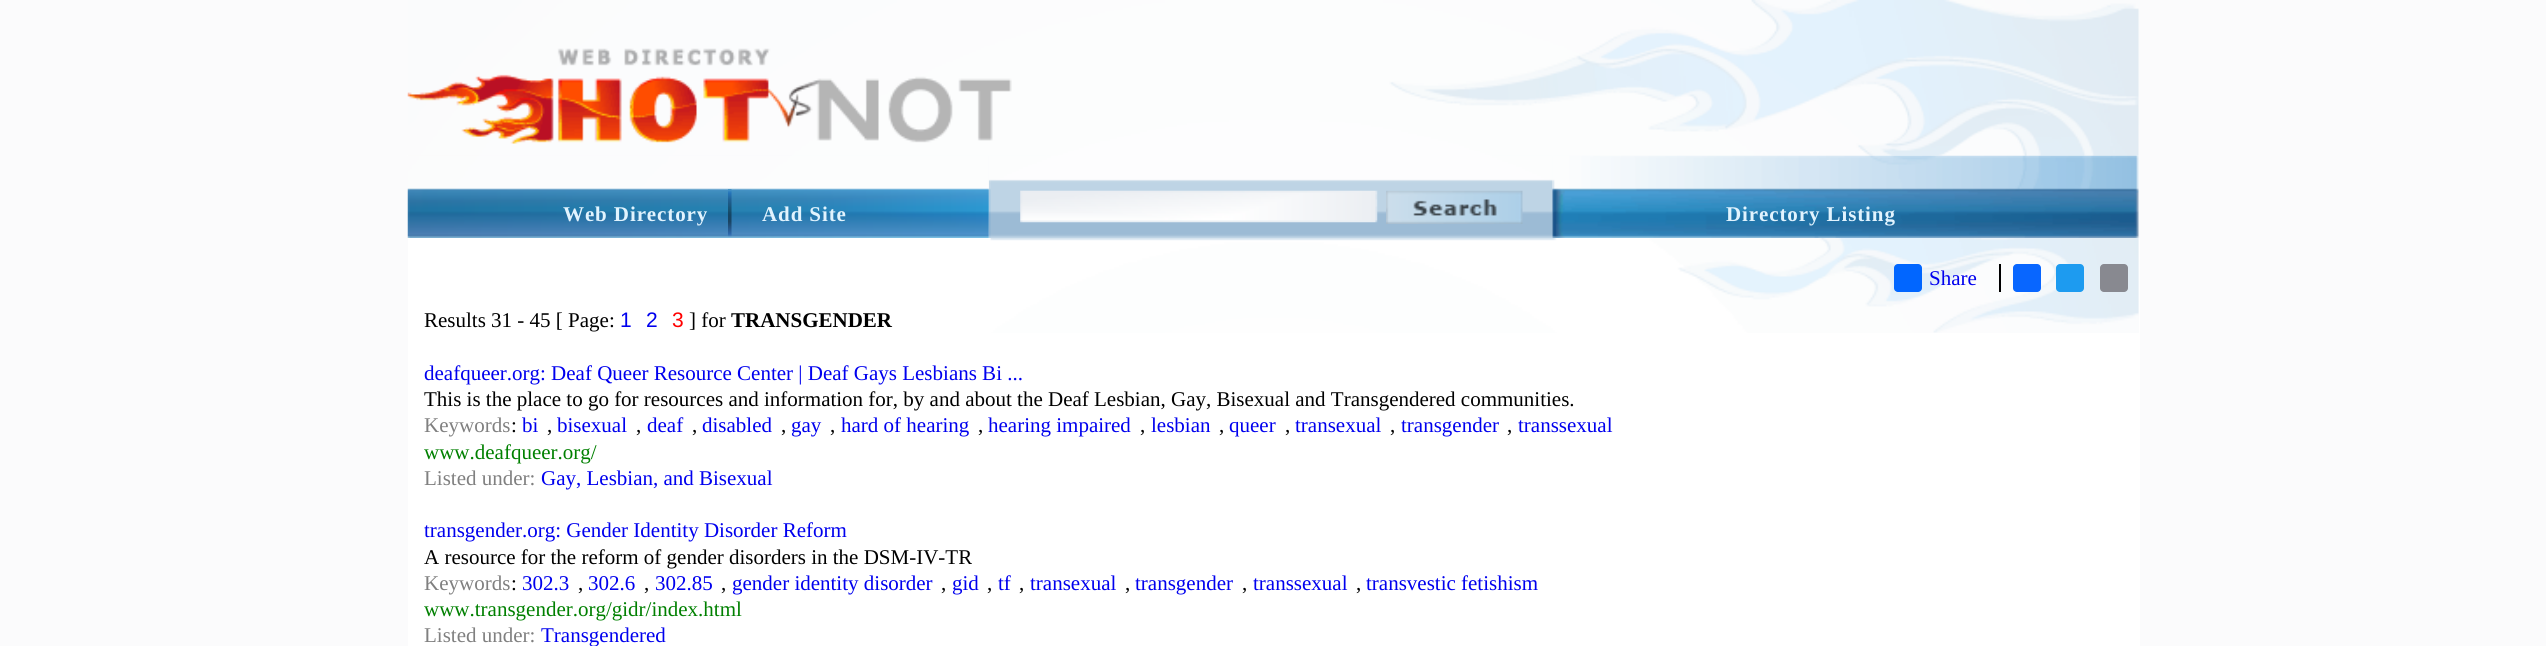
import math
import cairo


def use_color(cr, r, g, b):
  cr.set_source_rgb(r / 255, g / 255, b / 255)

def text(cr, x, y, s, family, size, color, bold=False, italic=False):
  cr.select_font_face(family, cairo.FONT_SLANT_ITALIC if italic else cairo.FONT_SLANT_NORMAL, cairo.FONT_WEIGHT_BOLD if bold else cairo.FONT_WEIGHT_NORMAL)
  cr.set_font_size(size)
  use_color(cr, *color)
  cr.move_to(x, y)
  cr.show_text(s)

def spaced_text(cr, x, y, s, letter, word):
  cr.move_to(x, y)
  for ch in s:
    cr.show_text(ch)
    cr.rel_move_to(letter + word * (ch == ' '), 0)

def box(cr, x, y, w, h, *color):
  use_color(cr, *color)
  cr.rectangle(x, y, w, h)
  cr.fill()

def round_rect(cr, x, y, w, h, r):
  cr.new_sub_path()
  for i, (u, v) in enumerate([(x + w - r, y + h - r), (x + r, y + h - r), (x + r, y + r), (x + w - r, y + r)]):
    cr.arc(u, v, r, i * math.pi / 2, (i + 1) * math.pi / 2)
  cr.close_path()

def picture(cr, path, x, y, w, h):
  cr.save()
  cr.set_source_surface(cairo.ImageSurface.create_from_png(path), x, y)
  cr.rectangle(x, y, w, h)
  cr.fill()
  cr.restore()

def draw(cr):
  use_color(cr, 251, 251, 252)
  cr.paint()
  picture(cr, "img_01.png", 408, 0, 1732, 156)
  picture(cr, "img_08.png", 1552, 155, 588, 83)
  picture(cr, "img_05.png", 988, 155, 565, 83)
  picture(cr, "img_03.png", 407, 155, 582, 83)
  picture(cr, "img_02.png", 407, 48, 640, 108)
  picture(cr, "img_04.png", 728, 189, 4, 48)
  picture(cr, "img_06.png", 1020, 190, 358, 33)
  picture(cr, "img_07.png", 1386, 190, 137, 34)
  box(cr, 408, 238, 1732, 408, 255, 255, 255)
  picture(cr, "img_09.png", 990, 238, 1149, 95)
  use_color(cr, 1, 102, 255)
  round_rect(cr, 1894, 264, 28, 28, 4)
  cr.fill()
  box(cr, 1999, 264, 2, 28, 0, 0, 0)
  use_color(cr, 8, 102, 255)
  round_rect(cr, 2013, 264, 28, 28, 4)
  cr.fill()
  use_color(cr, 29, 155, 240)
  round_rect(cr, 2056, 264, 28, 28, 4)
  cr.fill()
  use_color(cr, 136, 137, 144)
  round_rect(cr, 2100, 264, 28, 28, 4)
  cr.fill()
  cr.select_font_face("Liberation Serif", cairo.FONT_SLANT_NORMAL, cairo.FONT_WEIGHT_BOLD)
  cr.set_font_size(21)
  use_color(cr, 225, 243, 254)
  spaced_text(cr, 563, 221, "Web Directory", 0.9, 0)
  spaced_text(cr, 762, 221, "Add Site", 0.9, 0)
  spaced_text(cr, 1726, 221, "Directory Listing", 0.9, 0)
  text(cr, 1929, 285, "Share", "Liberation Serif", 21, (0, 0, 238))
  text(cr, 424, 327, "Results 31 - 45 [ Page:", "Liberation Serif", 21, (0, 0, 0))
  text(cr, 620, 327, "1", "Liberation Sans", 21, (0, 0, 238))
  text(cr, 646, 327, "2", "Liberation Sans", 21, (0, 0, 238))
  text(cr, 672, 327, "3", "Liberation Sans", 21, (255, 0, 0))
  text(cr, 689, 327, "] for", "Liberation Serif", 21, (0, 0, 0))
  text(cr, 731, 327, "TRANSGENDER", "Liberation Serif", 21, (0, 0, 0), bold=True)
  text(cr, 424, 380, "deafqueer.org: Deaf Queer Resource Center | Deaf Gays Lesbians Bi ...", "Liberation Serif", 21, (0, 0, 238))
  text(cr, 424, 406, "This is the place to go for resources and information for, by and about the Deaf Lesbian, Gay, Bisexual and Transgendered communities.", "Liberation Serif", 21, (0, 0, 0))
  text(cr, 424, 432, "Keywords", "Liberation Serif", 21, (128, 128, 128))
  text(cr, 511, 432, ":", "Liberation Serif", 21, (0, 0, 0))
  text(cr, 522, 432, "bi", "Liberation Serif", 21, (0, 0, 238))
  text(cr, 547, 432, ",", "Liberation Serif", 21, (0, 0, 0))
  text(cr, 557, 432, "bisexual", "Liberation Serif", 21, (0, 0, 238))
  text(cr, 636, 432, ",", "Liberation Serif", 21, (0, 0, 0))
  text(cr, 647, 432, "deaf", "Liberation Serif", 21, (0, 0, 238))
  text(cr, 692, 432, ",", "Liberation Serif", 21, (0, 0, 0))
  text(cr, 702, 432, "disabled", "Liberation Serif", 21, (0, 0, 238))
  text(cr, 781, 432, ",", "Liberation Serif", 21, (0, 0, 0))
  text(cr, 791, 432, "gay", "Liberation Serif", 21, (0, 0, 238))
  text(cr, 830, 432, ",", "Liberation Serif", 21, (0, 0, 0))
  text(cr, 841, 432, "hard of hearing", "Liberation Serif", 21, (0, 0, 238))
  text(cr, 978, 432, ",", "Liberation Serif", 21, (0, 0, 0))
  text(cr, 988, 432, "hearing impaired", "Liberation Serif", 21, (0, 0, 238))
  text(cr, 1140, 432, ",", "Liberation Serif", 21, (0, 0, 0))
  text(cr, 1151, 432, "lesbian", "Liberation Serif", 21, (0, 0, 238))
  text(cr, 1219, 432, ",", "Liberation Serif", 21, (0, 0, 0))
  text(cr, 1229, 432, "queer", "Liberation Serif", 21, (0, 0, 238))
  text(cr, 1285, 432, ",", "Liberation Serif", 21, (0, 0, 0))
  text(cr, 1295, 432, "transexual", "Liberation Serif", 21, (0, 0, 238))
  text(cr, 1390, 432, ",", "Liberation Serif", 21, (0, 0, 0))
  text(cr, 1401, 432, "transgender", "Liberation Serif", 21, (0, 0, 238))
  text(cr, 1507, 432, ",", "Liberation Serif", 21, (0, 0, 0))
  text(cr, 1518, 432, "transsexual", "Liberation Serif", 21, (0, 0, 238))
  text(cr, 424, 459, "www.deafqueer.org/", "Liberation Serif", 21, (0, 128, 0))
  text(cr, 424, 485, "Listed under:", "Liberation Serif", 21, (128, 128, 128))
  text(cr, 541, 485, "Gay, Lesbian, and Bisexual", "Liberation Serif", 21, (0, 0, 238))
  text(cr, 424, 537, "transgender.org: Gender Identity Disorder Reform", "Liberation Serif", 21, (0, 0, 238))
  text(cr, 424, 564, "A resource for the reform of gender disorders in the DSM-IV-TR", "Liberation Serif", 21, (0, 0, 0))
  text(cr, 424, 590, "Keywords", "Liberation Serif", 21, (128, 128, 128))
  text(cr, 511, 590, ":", "Liberation Serif", 21, (0, 0, 0))
  text(cr, 522, 590, "302.3", "Liberation Serif", 21, (0, 0, 238))
  text(cr, 578, 590, ",", "Liberation Serif", 21, (0, 0, 0))
  text(cr, 588, 590, "302.6", "Liberation Serif", 21, (0, 0, 238))
  text(cr, 644, 590, ",", "Liberation Serif", 21, (0, 0, 0))
  text(cr, 655, 590, "302.85", "Liberation Serif", 21, (0, 0, 238))
  text(cr, 721, 590, ",", "Liberation Serif", 21, (0, 0, 0))
  text(cr, 732, 590, "gender identity disorder", "Liberation Serif", 21, (0, 0, 238))
  text(cr, 941, 590, ",", "Liberation Serif", 21, (0, 0, 0))
  text(cr, 952, 590, "gid", "Liberation Serif", 21, (0, 0, 238))
  text(cr, 987, 590, ",", "Liberation Serif", 21, (0, 0, 0))
  text(cr, 998, 590, "tf", "Liberation Serif", 21, (0, 0, 238))
  text(cr, 1019, 590, ",", "Liberation Serif", 21, (0, 0, 0))
  text(cr, 1030, 590, "transexual", "Liberation Serif", 21, (0, 0, 238))
  text(cr, 1125, 590, ",", "Liberation Serif", 21, (0, 0, 0))
  text(cr, 1135, 590, "transgender", "Liberation Serif", 21, (0, 0, 238))
  text(cr, 1242, 590, ",", "Liberation Serif", 21, (0, 0, 0))
  text(cr, 1253, 590, "transsexual", "Liberation Serif", 21, (0, 0, 238))
  text(cr, 1356, 590, ",", "Liberation Serif", 21, (0, 0, 0))
  text(cr, 1366, 590, "transvestic fetishism", "Liberation Serif", 21, (0, 0, 238))
  text(cr, 424, 616, "www.transgender.org/gidr/index.html", "Liberation Serif", 21, (0, 128, 0))
  text(cr, 424, 642, "Listed under:", "Liberation Serif", 21, (128, 128, 128))
  text(cr, 541, 642, "Transgendered", "Liberation Serif", 21, (0, 0, 238))


surface = cairo.ImageSurface(cairo.FORMAT_RGB24, 2546, 646)
cr = cairo.Context(surface)
options = cairo.FontOptions()
options.set_hint_metrics(cairo.HINT_METRICS_OFF)
options.set_hint_style(cairo.HINT_STYLE_NONE)
cr.set_font_options(options)
cr.set_miter_limit(4)
draw(cr)
surface.write_to_png("out.png")
